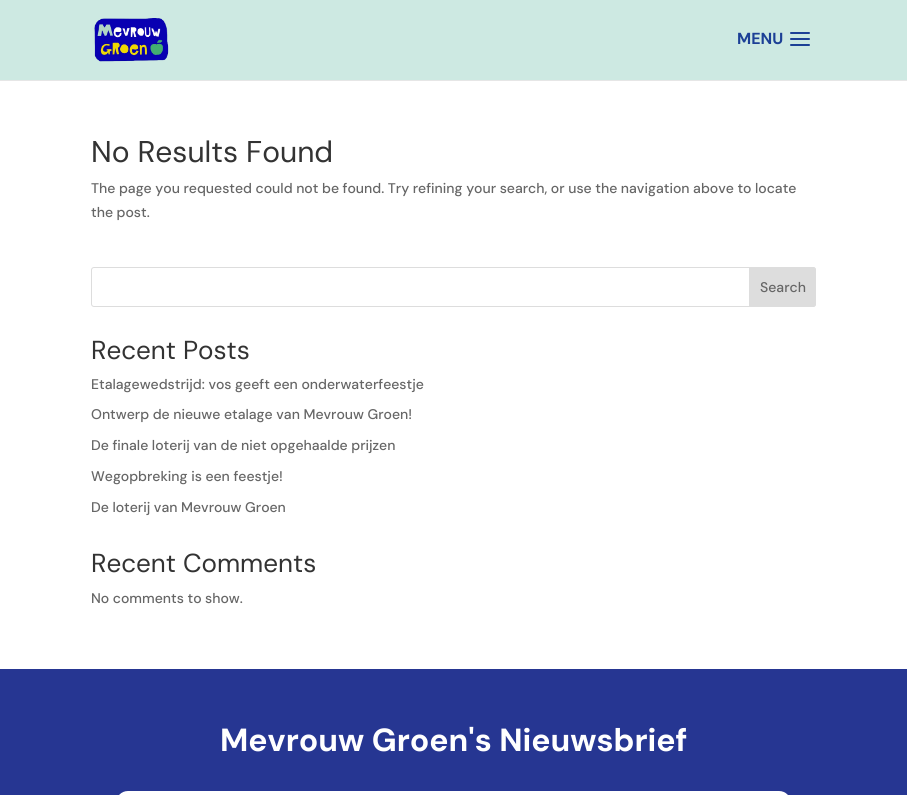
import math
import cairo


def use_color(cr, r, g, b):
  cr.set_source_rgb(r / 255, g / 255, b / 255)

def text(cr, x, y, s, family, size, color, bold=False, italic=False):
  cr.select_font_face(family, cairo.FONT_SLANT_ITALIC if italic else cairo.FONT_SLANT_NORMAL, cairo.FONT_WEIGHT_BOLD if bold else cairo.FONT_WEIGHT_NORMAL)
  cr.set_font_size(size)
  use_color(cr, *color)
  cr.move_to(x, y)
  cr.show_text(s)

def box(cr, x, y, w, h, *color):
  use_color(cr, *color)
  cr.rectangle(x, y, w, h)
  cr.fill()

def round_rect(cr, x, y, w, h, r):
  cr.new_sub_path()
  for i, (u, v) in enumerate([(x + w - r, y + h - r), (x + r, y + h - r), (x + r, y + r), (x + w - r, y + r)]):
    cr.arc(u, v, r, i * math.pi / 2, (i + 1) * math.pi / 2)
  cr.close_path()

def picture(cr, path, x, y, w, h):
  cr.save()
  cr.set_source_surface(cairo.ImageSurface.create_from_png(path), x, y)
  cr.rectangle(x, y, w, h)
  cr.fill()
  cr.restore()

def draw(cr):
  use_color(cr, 255, 255, 255)
  cr.paint()
  box(cr, 0, 80, 907, 1, 230, 230, 230)
  box(cr, 0, 0, 907, 80, 205, 233, 226)
  picture(cr, "img_01.png", 94, 18, 75, 44)
  picture(cr, "img_02.png", 790, 32, 20, 14)
  round_rect(cr, 91.5, 267.5, 724, 39, 2.5)
  use_color(cr, 221, 221, 221)
  cr.set_line_width(1)
  cr.stroke()
  cr.new_path()
  cr.move_to(749.5, 267.5)
  cr.line_to(813, 267.5)
  cr.curve_to(814.5, 267.5, 815.5, 268.5, 815.5, 270)
  cr.line_to(815.5, 304)
  cr.curve_to(815.5, 305.5, 814.5, 306.5, 813, 306.5)
  cr.line_to(749.5, 306.5)
  cr.close_path()
  cr.fill_preserve()
  cr.stroke()
  box(cr, 0, 669, 907, 126, 38, 54, 146)
  use_color(cr, 255, 255, 255)
  round_rect(cr, 116, 791, 675, 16, 12)
  cr.fill()
  text(cr, 737, 44, "MENU", "DM Sans", 16, (28, 64, 150), bold=True)
  text(cr, 91, 162, "No Results Found", "DM Sans", 30, (51, 51, 51))
  text(cr, 91, 193, "The page you requested could not be found. Try refining your search, or use the navigation above to locate", "DM Sans Medium", 14, (102, 102, 102))
  text(cr, 91, 217, "the post.", "DM Sans Medium", 14, (102, 102, 102))
  text(cr, 760, 292, "Search", "DM Sans Medium", 14, (102, 102, 102))
  text(cr, 91, 359, "Recent Posts", "DM Sans", 26, (51, 51, 51))
  text(cr, 91, 389, "Etalagewedstrijd: vos geeft een onderwaterfeestje", "DM Sans Medium", 14, (102, 102, 102))
  text(cr, 91, 419, "Ontwerp de nieuwe etalage van Mevrouw Groen!", "DM Sans Medium", 14, (102, 102, 102))
  text(cr, 91, 450, "De finale loterij van de niet opgehaalde prijzen", "DM Sans Medium", 14, (102, 102, 102))
  text(cr, 91, 481, "Wegopbreking is een feestje!", "DM Sans Medium", 14, (102, 102, 102))
  text(cr, 91, 512, "De loterij van Mevrouw Groen", "DM Sans Medium", 14, (102, 102, 102))
  text(cr, 91, 572, "Recent Comments", "DM Sans", 26, (51, 51, 51))
  text(cr, 91, 603, "No comments to show.", "DM Sans Medium", 14, (102, 102, 102))
  text(cr, 220, 751, "Mevrouw Groen's Nieuwsbrief", "DM Sans", 32, (255, 255, 255), bold=True)


surface = cairo.ImageSurface(cairo.FORMAT_RGB24, 907, 795)
cr = cairo.Context(surface)
options = cairo.FontOptions()
options.set_hint_metrics(cairo.HINT_METRICS_OFF)
options.set_hint_style(cairo.HINT_STYLE_NONE)
cr.set_font_options(options)
cr.set_miter_limit(4)
draw(cr)
surface.write_to_png("out.png")
